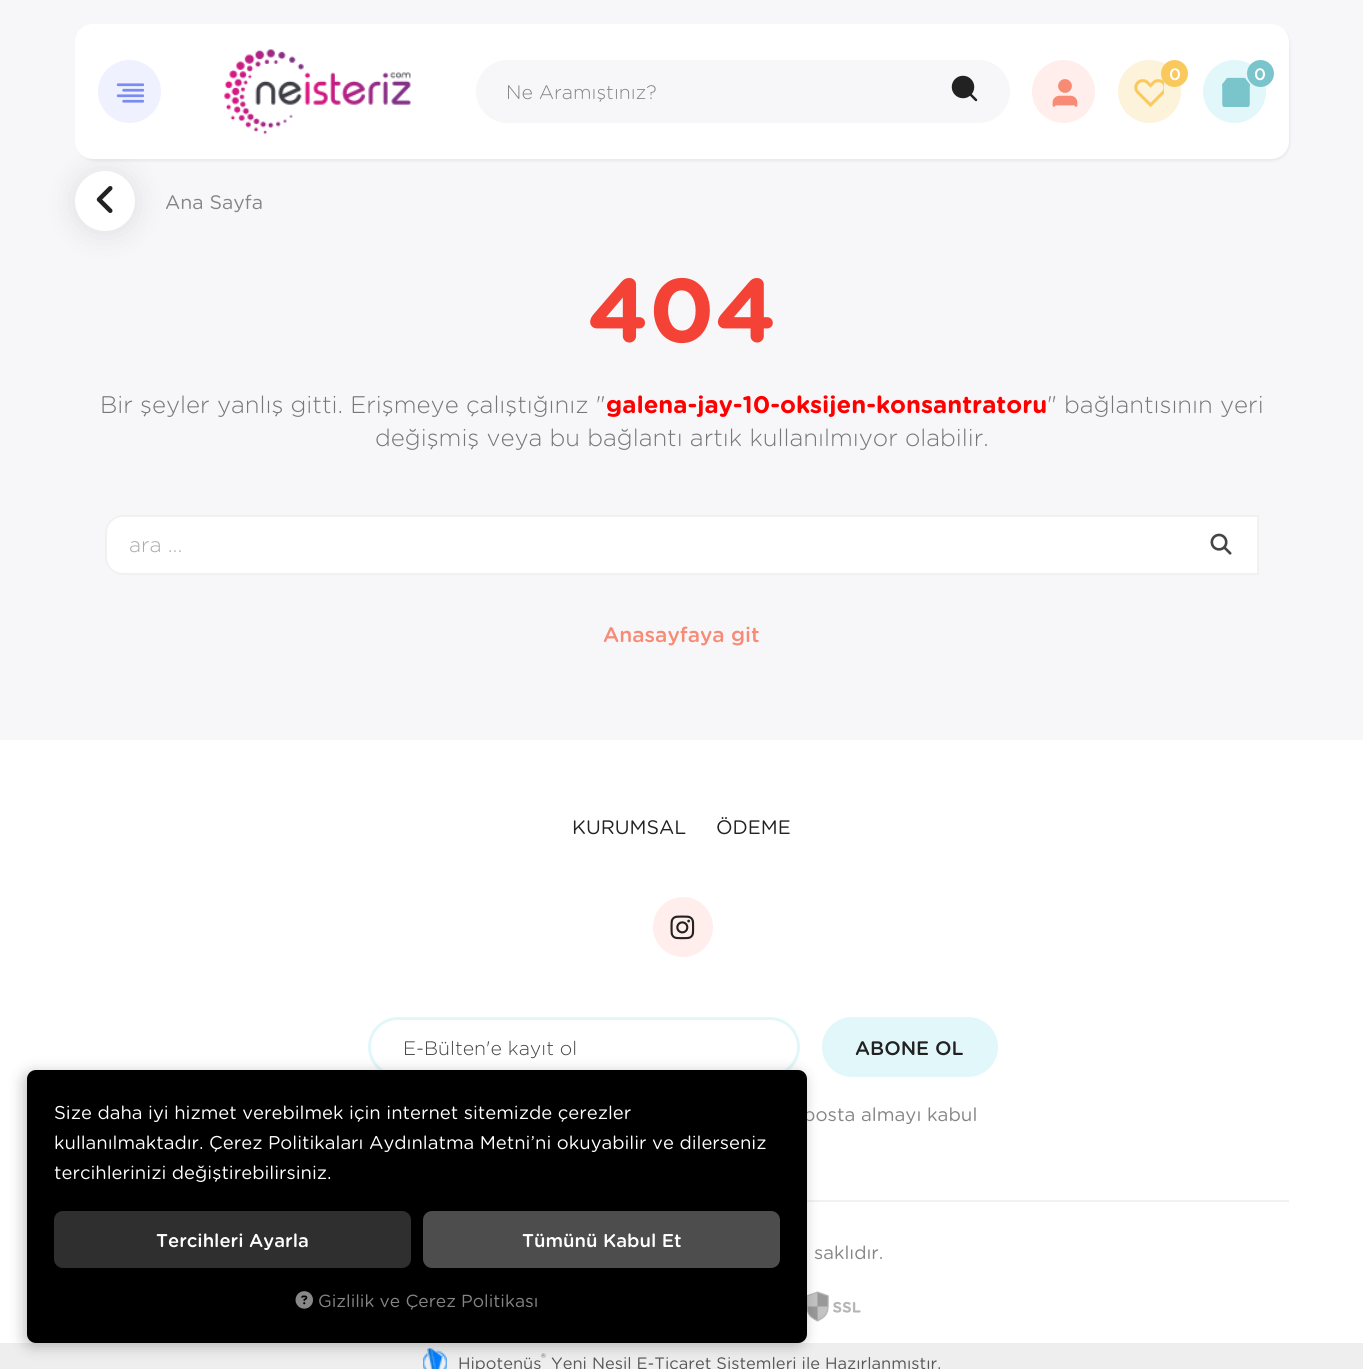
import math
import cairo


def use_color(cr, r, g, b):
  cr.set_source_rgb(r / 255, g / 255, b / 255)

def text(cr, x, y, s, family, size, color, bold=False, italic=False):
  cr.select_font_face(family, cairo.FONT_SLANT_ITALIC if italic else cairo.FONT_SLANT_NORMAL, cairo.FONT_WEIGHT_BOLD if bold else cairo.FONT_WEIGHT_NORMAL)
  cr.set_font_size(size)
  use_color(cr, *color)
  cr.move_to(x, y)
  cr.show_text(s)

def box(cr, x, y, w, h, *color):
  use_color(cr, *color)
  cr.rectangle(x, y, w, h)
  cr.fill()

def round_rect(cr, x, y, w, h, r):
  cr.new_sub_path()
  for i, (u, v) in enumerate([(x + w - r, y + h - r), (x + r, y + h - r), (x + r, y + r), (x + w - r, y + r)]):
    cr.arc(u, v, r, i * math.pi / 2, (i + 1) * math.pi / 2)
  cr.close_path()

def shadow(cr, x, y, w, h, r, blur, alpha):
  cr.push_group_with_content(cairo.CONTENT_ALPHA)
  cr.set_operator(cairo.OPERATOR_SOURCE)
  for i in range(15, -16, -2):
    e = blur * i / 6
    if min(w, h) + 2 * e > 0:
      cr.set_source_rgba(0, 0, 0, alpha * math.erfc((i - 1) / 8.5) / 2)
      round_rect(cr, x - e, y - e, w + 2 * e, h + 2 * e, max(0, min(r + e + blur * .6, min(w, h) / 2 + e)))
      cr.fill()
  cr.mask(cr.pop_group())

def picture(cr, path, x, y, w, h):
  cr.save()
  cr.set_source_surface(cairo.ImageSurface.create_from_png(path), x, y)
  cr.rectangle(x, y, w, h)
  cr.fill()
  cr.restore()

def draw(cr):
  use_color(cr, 247, 247, 249)
  cr.paint()
  use_color(cr, 0, 0, 0)
  shadow(cr, 77, 26, 1213, 135, 18, 1.5, 0.06)
  shadow(cr, 75, 173, 60, 60, 30, 15, 0.1)
  use_color(cr, 255, 255, 255)
  round_rect(cr, 75, 24, 1214, 135, 18)
  cr.fill()
  use_color(cr, 239, 241, 255)
  cr.arc(129.5, 91.5, 31.5, 0, 2 * math.pi)
  cr.fill()
  picture(cr, "img_01.png", 116, 83, 28, 20)
  picture(cr, "img_02.png", 224, 49, 187, 85)
  use_color(cr, 255, 238, 235)
  cr.arc(1063.5, 91.5, 31.5, 0, 2 * math.pi)
  cr.fill()
  picture(cr, "img_03.png", 1052, 79, 26, 28)
  use_color(cr, 253, 242, 218)
  cr.arc(1149.5, 91.5, 31.5, 0, 2 * math.pi)
  cr.fill()
  picture(cr, "img_04.png", 1134, 79, 30, 28)
  use_color(cr, 250, 201, 94)
  cr.arc(1174.5, 73.5, 13.5, 0, 2 * math.pi)
  cr.fill()
  use_color(cr, 225, 247, 249)
  cr.arc(1234.5, 91.5, 31.5, 0, 2 * math.pi)
  cr.fill()
  picture(cr, "img_05.png", 1222, 77, 28, 30)
  use_color(cr, 121, 197, 203)
  cr.arc(1260.5, 73.5, 13.5, 0, 2 * math.pi)
  cr.fill()
  use_color(cr, 247, 247, 249)
  round_rect(cr, 476, 60, 534, 63, 31.5)
  cr.fill()
  use_color(cr, 34, 34, 34)
  cr.arc(963, 87, 10, 0, 2 * math.pi)
  cr.fill_preserve()
  cr.set_line_width(2.5)
  cr.stroke()
  cr.new_path()
  cr.move_to(976, 100)
  cr.line_to(970.5, 94.5)
  cr.set_line_cap(cairo.LINE_CAP_ROUND)
  cr.set_line_join(cairo.LINE_JOIN_ROUND)
  cr.stroke()
  use_color(cr, 255, 255, 255)
  cr.arc(105, 201, 30, 0, 2 * math.pi)
  cr.fill()
  picture(cr, "img_06.png", 96, 186, 17, 27)
  cr.new_path()
  cr.move_to(123, 516)
  cr.line_to(1258, 516)
  cr.line_to(1258, 574)
  cr.line_to(123, 574)
  cr.curve_to(113.5, 574, 106, 566.5, 106, 557)
  cr.line_to(106, 533)
  cr.curve_to(106, 523.5, 113.5, 516, 123, 516)
  cr.close_path()
  cr.fill_preserve()
  use_color(cr, 241, 241, 239)
  cr.set_line_width(2)
  cr.set_line_cap(cairo.LINE_CAP_BUTT)
  cr.set_line_join(cairo.LINE_JOIN_MITER)
  cr.stroke()
  picture(cr, "img_07.png", 1210, 533, 22, 22)
  box(cr, 0, 740, 1363, 603, 255, 255, 255)
  use_color(cr, 255, 238, 235)
  cr.arc(683, 927, 30, 0, 2 * math.pi)
  cr.fill()
  picture(cr, "img_08.png", 670, 915, 25, 25)
  round_rect(cr, 369.5, 1018.5, 429, 57, 28.5)
  use_color(cr, 225, 247, 249)
  cr.set_line_width(3)
  cr.stroke()
  round_rect(cr, 822, 1017, 176, 60, 30)
  cr.fill()
  box(cr, 807, 1200, 482, 2, 241, 241, 239)
  picture(cr, "img_09.png", 807, 1291, 22, 31)
  picture(cr, "img_10.png", 833, 1301, 28, 12)
  box(cr, 0, 1343, 1363, 26, 238, 238, 238)
  picture(cr, "img_11.png", 423, 1348, 24, 21)
  use_color(cr, 0, 0, 0)
  shadow(cr, 24, 1073, 780, 273, 9, 7.5, 0.25)
  text(cr, 1169, 80, "0", "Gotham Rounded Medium", 16.5, (255, 255, 255))
  text(cr, 1254, 80, "0", "Gotham Rounded Medium", 16.5, (255, 255, 255))
  text(cr, 506, 99, "Ne Aramıştınız?", "Gotham Rounded Light", 19.5, (133, 133, 133))
  text(cr, 165, 209, "Ana Sayfa", "Gotham Rounded", 19.5, (133, 133, 133))
  text(cr, 587, 342, "404", "Gotham Rounded", 90, (244, 67, 54), bold=True)
  text(cr, 100, 413, "Bir şeyler yanlış gitti. Erişmeye çalıştığınız \"", "Gotham Rounded Light", 24, (119, 119, 119))
  text(cr, 606, 413, "galena-jay-10-oksijen-konsantratoru", "Gotham Rounded", 24, (255, 0, 0), bold=True)
  text(cr, 1047, 413, "\" bağlantısının yeri", "Gotham Rounded Light", 24, (119, 119, 119))
  text(cr, 375, 446, "değişmiş veya bu bağlantı artık kullanılmıyor olabilir.", "Gotham Rounded Light", 24, (119, 119, 119))
  text(cr, 129, 552, "ara ...", "Gotham Rounded Light", 21, (170, 170, 170))
  text(cr, 603, 642, "Anasayfaya git", "Gotham Rounded Medium", 21, (247, 139, 118))
  text(cr, 572, 834, "KURUMSAL", "Gotham Rounded", 19.5, (34, 34, 34))
  text(cr, 716, 834, "ÖDEME", "Gotham Rounded", 19.5, (34, 34, 34))
  text(cr, 403, 1055, "E-Bülten'e kayıt ol", "Gotham Rounded Light", 19.5, (68, 68, 68))
  text(cr, 855, 1055, "ABONE OL", "Gotham Rounded Medium", 19.5, (34, 34, 34))
  text(cr, 803, 1121, "posta almayı kabul", "Gotham Rounded", 18.75, (133, 133, 133))
  text(cr, 814, 1259, "saklıdır.", "Gotham Rounded", 18.5, (133, 133, 133))
  text(cr, 541, 1362, "®", "Gotham Rounded", 12, (87, 87, 86))
  text(cr, 458, 1369, "Hipotenüs", "Gotham Rounded", 16.5, (87, 87, 86))
  text(cr, 551, 1369, "Yeni Nesil E-Ticaret Sistemleri ile Hazırlanmıştır.", "Gotham Rounded", 16.5, (87, 87, 86))
  use_color(cr, 0, 0, 0)
  round_rect(cr, 27, 1070, 780, 273, 9)
  cr.fill()
  text(cr, 54, 1119, "Size daha iyi hizmet verebilmek için internet sitemizde çerezler", "Gotham Rounded", 18.5, (255, 255, 255))
  text(cr, 54, 1149, "kullanılmaktadır. Çerez Politikaları Aydınlatma Metni’ni okuyabilir ve dilerseniz", "Gotham Rounded", 18.5, (255, 255, 255))
  text(cr, 54, 1179, "tercihlerinizi değiştirebilirsiniz.", "Gotham Rounded", 18.5, (255, 255, 255))
  use_color(cr, 47, 47, 47)
  round_rect(cr, 54, 1211, 357, 57, 9)
  cr.fill()
  text(cr, 156, 1247, "Tercihleri Ayarla", "Gotham Rounded Medium", 18.5, (255, 255, 255))
  use_color(cr, 77, 77, 77)
  round_rect(cr, 423, 1211, 357, 57, 9)
  cr.fill()
  text(cr, 522, 1247, "Tümünü Kabul Et", "Gotham Rounded Medium", 18.5, (255, 255, 255))
  picture(cr, "img_12.png", 295, 1291, 18, 18)
  text(cr, 318, 1307, "Gizlilik ve Çerez Politikası", "Gotham Rounded", 17.5, (133, 133, 133))


surface = cairo.ImageSurface(cairo.FORMAT_RGB24, 1363, 1369)
cr = cairo.Context(surface)
options = cairo.FontOptions()
options.set_hint_metrics(cairo.HINT_METRICS_OFF)
options.set_hint_style(cairo.HINT_STYLE_NONE)
cr.set_font_options(options)
cr.set_miter_limit(4)
draw(cr)
surface.write_to_png("out.png")
